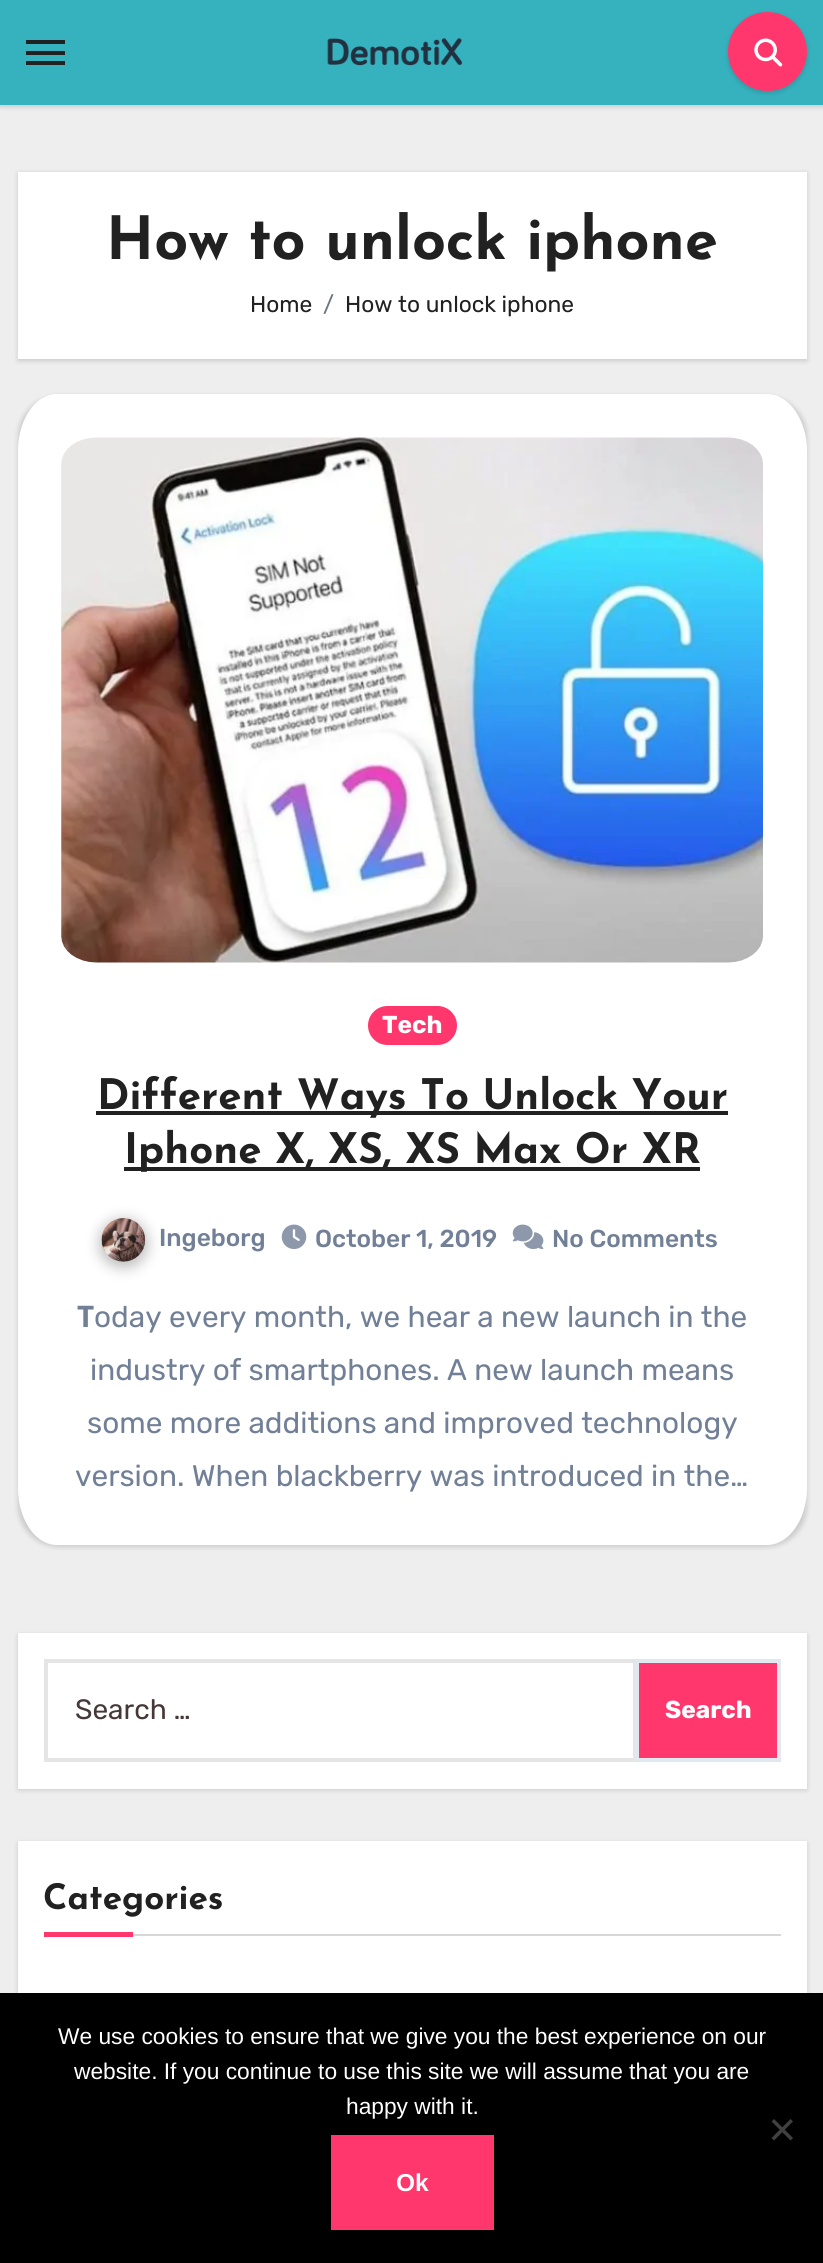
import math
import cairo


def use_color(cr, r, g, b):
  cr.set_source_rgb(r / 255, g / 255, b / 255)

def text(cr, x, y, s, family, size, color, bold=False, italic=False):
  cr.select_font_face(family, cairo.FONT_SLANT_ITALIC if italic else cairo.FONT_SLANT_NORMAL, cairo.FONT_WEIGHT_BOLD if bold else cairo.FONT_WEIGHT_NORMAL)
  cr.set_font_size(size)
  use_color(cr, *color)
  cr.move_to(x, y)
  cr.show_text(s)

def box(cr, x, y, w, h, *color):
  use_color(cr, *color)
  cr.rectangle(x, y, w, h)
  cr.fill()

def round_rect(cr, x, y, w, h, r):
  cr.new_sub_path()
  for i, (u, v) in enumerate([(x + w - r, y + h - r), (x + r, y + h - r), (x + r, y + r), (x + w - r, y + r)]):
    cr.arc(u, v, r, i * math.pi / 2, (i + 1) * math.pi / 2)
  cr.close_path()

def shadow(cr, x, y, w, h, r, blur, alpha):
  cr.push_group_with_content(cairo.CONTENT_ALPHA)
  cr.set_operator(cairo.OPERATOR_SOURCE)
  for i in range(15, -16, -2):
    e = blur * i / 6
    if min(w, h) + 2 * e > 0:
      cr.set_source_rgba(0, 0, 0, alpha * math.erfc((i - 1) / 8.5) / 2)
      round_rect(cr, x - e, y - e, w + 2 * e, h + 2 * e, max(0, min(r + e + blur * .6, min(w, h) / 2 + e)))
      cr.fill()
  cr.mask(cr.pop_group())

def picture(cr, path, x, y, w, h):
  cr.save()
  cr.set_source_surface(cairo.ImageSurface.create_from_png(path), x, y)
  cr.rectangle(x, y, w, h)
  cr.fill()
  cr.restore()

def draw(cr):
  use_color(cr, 238, 238, 238)
  cr.paint()
  use_color(cr, 0, 0, 0)
  shadow(cr, 0, 2, 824, 105, 0, 2.5, 0.15)
  box(cr, 0, 0, 823, 105, 54, 177, 190)
  box(cr, 26, 40, 39, 4, 33, 33, 33)
  box(cr, 26, 51, 39, 4, 33, 33, 33)
  box(cr, 26, 61, 39, 4, 33, 33, 33)
  picture(cr, "img_01.png", 327, 38, 135, 28)
  use_color(cr, 0, 0, 0)
  shadow(cr, 728, 14, 79, 79, 39.5, 2.5, 0.15)
  use_color(cr, 255, 55, 108)
  cr.arc(767.5, 51.5, 39.5, 0, 2 * math.pi)
  cr.fill()
  picture(cr, "img_02.png", 754, 38, 29, 29)
  use_color(cr, 0, 0, 0)
  shadow(cr, 18, 173, 789, 188, 0, 2.5, 0.15)
  box(cr, 18, 172, 789, 187, 255, 255, 255)
  use_color(cr, 0, 0, 0)
  shadow(cr, 18, 396, 789, 1151, 40, 2.5, 0.15)
  use_color(cr, 255, 255, 255)
  cr.new_path()
  cr.move_to(57, 394)
  cr.line_to(767, 394)
  cr.curve_to(789, 394, 807, 420, 807, 451)
  cr.line_to(807, 1488)
  cr.curve_to(807, 1519, 789, 1545, 767, 1545)
  cr.line_to(57, 1545)
  cr.curve_to(35, 1545, 18, 1519, 18, 1488)
  cr.line_to(18, 451)
  cr.curve_to(18, 420, 35, 394, 57, 394)
  cr.close_path()
  cr.fill()
  picture(cr, "img_03.png", 61, 437, 702, 526)
  use_color(cr, 255, 55, 108)
  round_rect(cr, 368, 1006, 89, 39, 19.5)
  cr.fill()
  box(cr, 96, 1111, 632, 4, 33, 33, 33)
  box(cr, 124, 1167, 576, 4, 33, 33, 33)
  use_color(cr, 33, 33, 33)
  shadow(cr, 100, 1220, 47, 47, 23.5, 7, 0.3)
  picture(cr, "img_04.png", 101, 1218, 45, 44)
  picture(cr, "img_05.png", 281, 1224, 26, 25)
  picture(cr, "img_06.png", 512, 1224, 32, 26)
  use_color(cr, 0, 0, 0)
  shadow(cr, 18, 1635, 789, 155, 0, 2.5, 0.15)
  box(cr, 18, 1633, 789, 156, 255, 255, 255)
  cr.rectangle(46, 1661, 589, 99)
  use_color(cr, 229, 229, 229)
  cr.set_line_width(4)
  cr.stroke()
  use_color(cr, 255, 55, 108)
  cr.rectangle(637, 1661, 142, 99)
  cr.fill_preserve()
  use_color(cr, 226, 232, 240)
  cr.stroke()
  use_color(cr, 0, 0, 0)
  shadow(cr, 18, 1843, 789, 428, 0, 2.5, 0.15)
  box(cr, 18, 1841, 789, 152, 255, 255, 255)
  box(cr, 133, 1934, 648, 2, 215, 215, 215)
  box(cr, 44, 1932, 89, 5, 255, 55, 108)
  box(cr, 0, 1993, 823, 270, 0, 0, 0)
  use_color(cr, 64, 64, 64)
  cr.new_path()
  cr.move_to(790.5, 2119)
  cr.line_to(793, 2121.5)
  cr.line_to(774, 2140.5)
  cr.line_to(771.5, 2138)
  cr.close_path()
  cr.fill()
  cr.new_path()
  cr.move_to(771.5, 2121.5)
  cr.line_to(774, 2119)
  cr.line_to(793, 2138)
  cr.line_to(790.5, 2140.5)
  cr.close_path()
  cr.fill()
  box(cr, 331, 2135, 163, 95, 255, 55, 108)
  text(cr, 106, 259, "How to unlock iphone", "Josefin Sans", 59.5, (33, 33, 33), bold=True)
  text(cr, 250, 312, "Home", "Rubik", 22.75, (33, 33, 33))
  text(cr, 323, 312, "/", "Rubik", 22.75, (108, 117, 125))
  text(cr, 345, 312, "How to unlock iphone", "Rubik", 22.75, (33, 33, 33))
  text(cr, 382, 1033, "Tech", "Rubik", 24.5, (255, 255, 255), bold=True)
  text(cr, 97, 1109, "Different Ways To Unlock Your", "Josefin Sans", 42, (33, 33, 33), bold=True)
  text(cr, 124, 1163, "Iphone X, XS, XS Max Or XR", "Josefin Sans", 42, (33, 33, 33), bold=True)
  text(cr, 159, 1246, "Ingeborg", "Rubik Medium", 24.5, (113, 128, 150))
  text(cr, 315, 1247, "October 1, 2019", "Rubik Medium", 24.5, (113, 128, 150))
  text(cr, 552, 1247, "No Comments", "Rubik Medium", 24.5, (113, 128, 150))
  text(cr, 77, 1327, "T", "Noto Sans", 29.75, (113, 128, 150), bold=True)
  text(cr, 94, 1327, "oday every month, we hear a new launch in the", "Rubik", 29.75, (113, 128, 150))
  text(cr, 90, 1380, "industry of smartphones. A new launch means", "Rubik", 29.75, (113, 128, 150))
  text(cr, 87, 1433, "some more additions and improved technology", "Rubik", 29.75, (113, 128, 150))
  text(cr, 75, 1486, "version. When blackberry was introduced in the…", "Rubik", 29.75, (113, 128, 150))
  text(cr, 75, 1719, "Search …", "Rubik", 28, (70, 56, 56))
  text(cr, 665, 1718, "Search", "Rubik", 24.5, (255, 255, 255), bold=True)
  text(cr, 43, 1909, "Categories", "Josefin Sans", 35, (33, 33, 33), bold=True)
  text(cr, 58, 2044, "We use cookies to ensure that we give you the best experience on our", "Liberation Sans", 22.75, (255, 255, 255))
  text(cr, 74, 2079, "website. If you continue to use this site we will assume that you are", "Liberation Sans", 22.75, (255, 255, 255))
  text(cr, 346, 2114, "happy with it.", "Liberation Sans", 22.75, (255, 255, 255))
  text(cr, 396, 2191, "Ok", "Liberation Sans", 24.5, (255, 255, 255), bold=True)


surface = cairo.ImageSurface(cairo.FORMAT_RGB24, 823, 2263)
cr = cairo.Context(surface)
options = cairo.FontOptions()
options.set_hint_metrics(cairo.HINT_METRICS_OFF)
options.set_hint_style(cairo.HINT_STYLE_NONE)
cr.set_font_options(options)
cr.set_miter_limit(4)
draw(cr)
surface.write_to_png("out.png")
